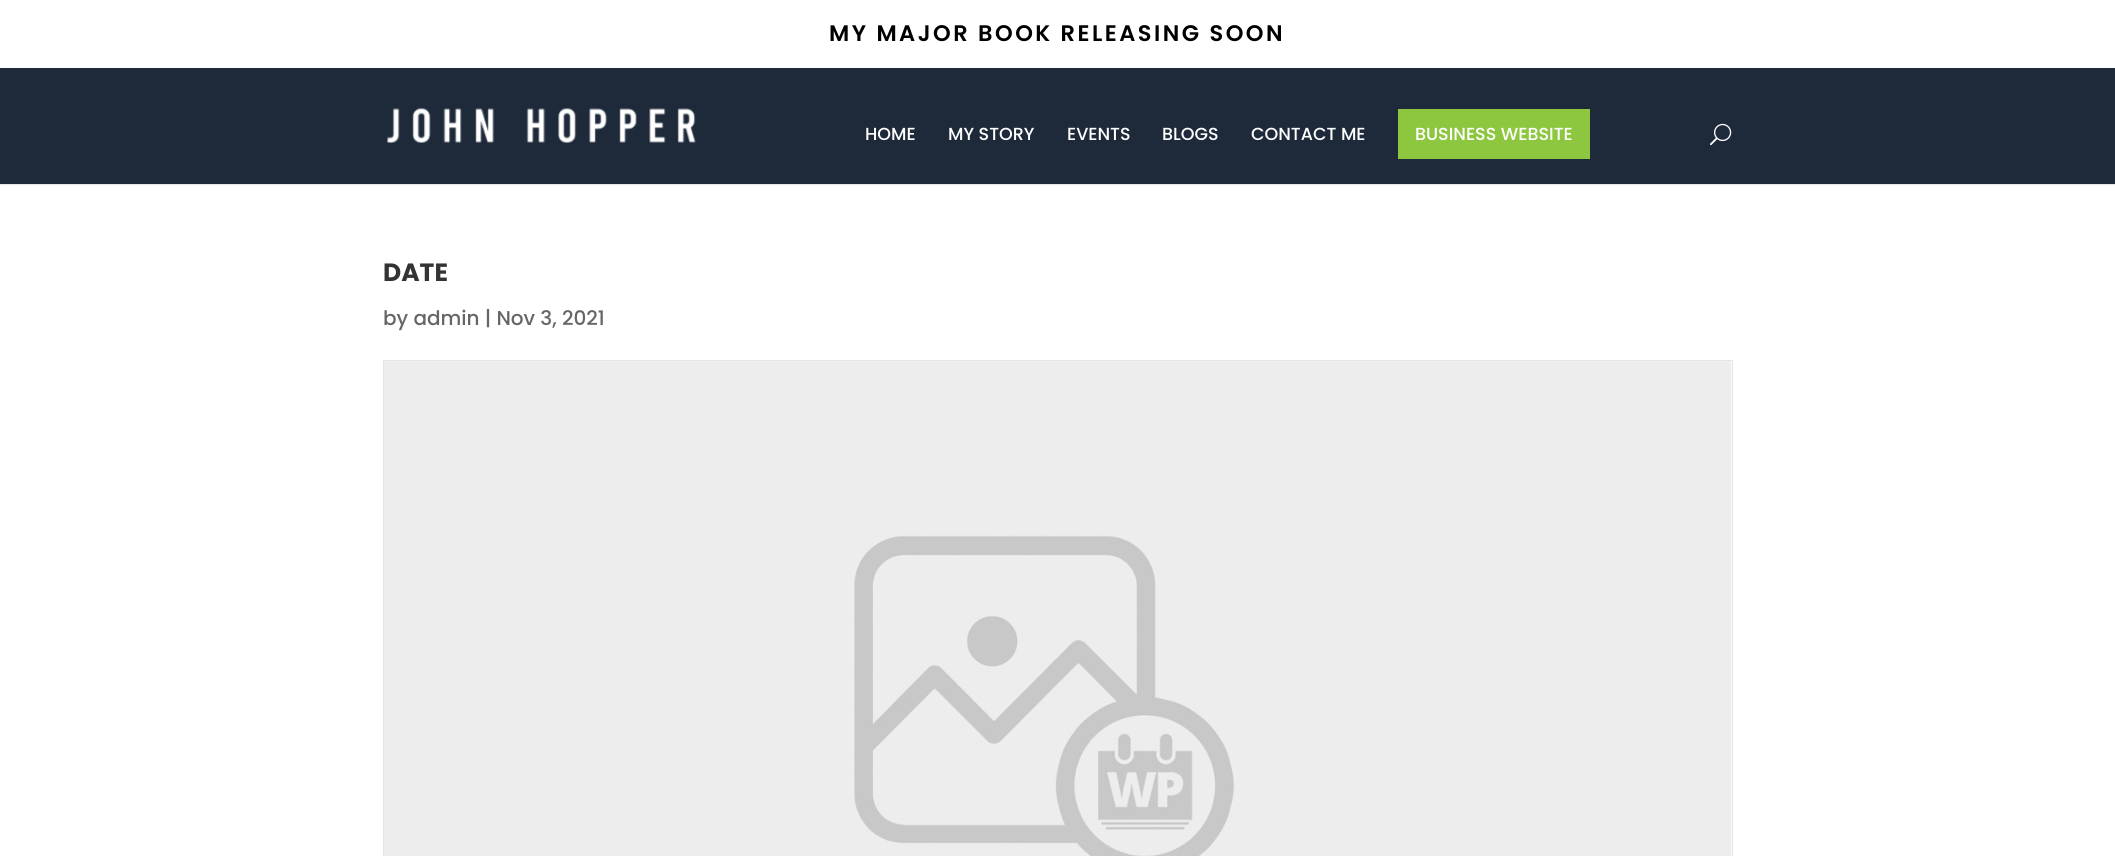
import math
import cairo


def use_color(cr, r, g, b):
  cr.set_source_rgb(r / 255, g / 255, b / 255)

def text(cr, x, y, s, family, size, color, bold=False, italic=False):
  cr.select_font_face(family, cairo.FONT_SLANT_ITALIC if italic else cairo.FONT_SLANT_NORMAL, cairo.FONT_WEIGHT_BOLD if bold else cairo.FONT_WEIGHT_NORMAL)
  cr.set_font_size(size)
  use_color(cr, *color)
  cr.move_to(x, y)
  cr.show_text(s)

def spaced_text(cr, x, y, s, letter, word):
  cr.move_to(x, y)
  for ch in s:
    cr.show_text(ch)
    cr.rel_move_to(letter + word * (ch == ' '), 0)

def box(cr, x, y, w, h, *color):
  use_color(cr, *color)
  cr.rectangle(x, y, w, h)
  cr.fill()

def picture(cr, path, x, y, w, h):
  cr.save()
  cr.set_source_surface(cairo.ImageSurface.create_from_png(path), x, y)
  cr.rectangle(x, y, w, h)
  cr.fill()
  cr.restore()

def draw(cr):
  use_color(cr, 255, 255, 255)
  cr.paint()
  box(cr, 0, 184, 2115, 1, 230, 230, 230)
  box(cr, 0, 68, 2115, 116, 30, 42, 58)
  picture(cr, "img_01.png", 387, 108, 309, 35)
  box(cr, 1398, 109, 192, 50, 141, 198, 63)
  picture(cr, "img_02.png", 1710, 123, 22, 23)
  cr.rectangle(383.5, 360.5, 1349, 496)
  use_color(cr, 228, 228, 228)
  cr.set_line_width(1)
  cr.stroke()
  picture(cr, "img_03.png", 384, 361, 1348, 495)
  cr.select_font_face("Poppins SemiBold")
  cr.set_font_size(22.5)
  use_color(cr, 0, 0, 0)
  spaced_text(cr, 829, 41, "MY MAJOR BOOK RELEASING SOON", 2.5, 0)
  text(cr, 865, 140, "HOME", "Poppins Medium", 17.5, (255, 255, 255))
  text(cr, 948, 140, "MY STORY", "Poppins Medium", 17.5, (255, 255, 255))
  text(cr, 1067, 140, "EVENTS", "Poppins Medium", 17.5, (255, 255, 255))
  text(cr, 1162, 140, "BLOGS", "Poppins Medium", 17.5, (255, 255, 255))
  text(cr, 1251, 140, "CONTACT ME", "Poppins Medium", 17.5, (255, 255, 255))
  text(cr, 1415, 140, "BUSINESS WEBSITE", "Poppins Medium", 17.5, (255, 255, 255))
  text(cr, 383, 281, "DATE", "Poppins", 25, (51, 51, 51), bold=True)
  text(cr, 383, 325, "by admin | Nov 3, 2021", "Poppins Medium", 20, (102, 102, 102))


surface = cairo.ImageSurface(cairo.FORMAT_RGB24, 2115, 856)
cr = cairo.Context(surface)
options = cairo.FontOptions()
options.set_hint_metrics(cairo.HINT_METRICS_OFF)
options.set_hint_style(cairo.HINT_STYLE_NONE)
cr.set_font_options(options)
cr.set_miter_limit(4)
draw(cr)
surface.write_to_png("out.png")
